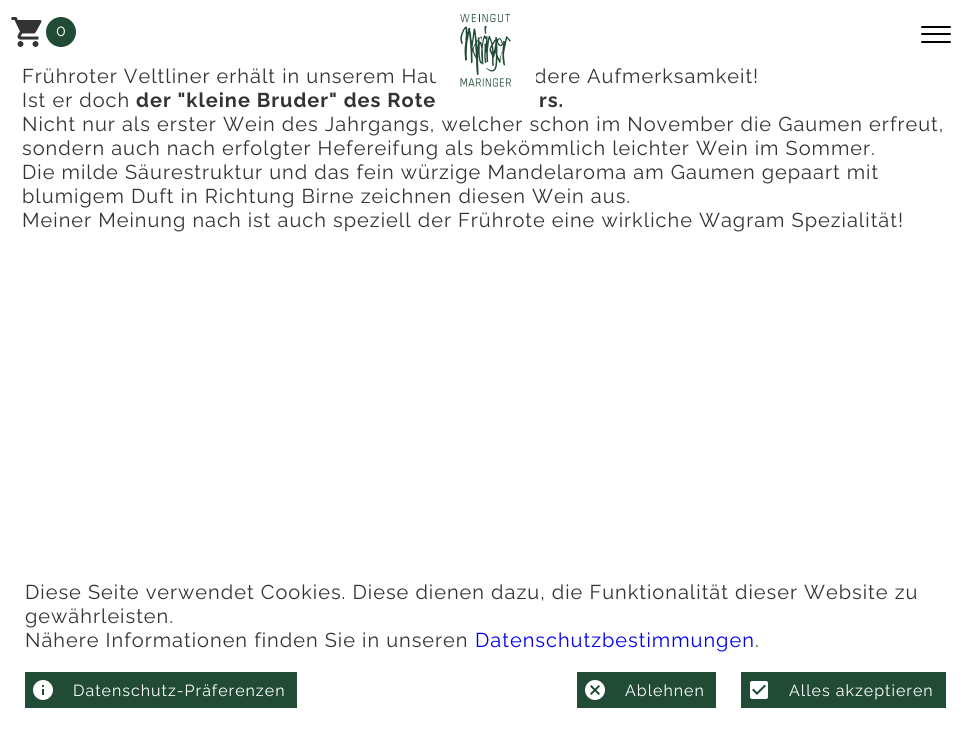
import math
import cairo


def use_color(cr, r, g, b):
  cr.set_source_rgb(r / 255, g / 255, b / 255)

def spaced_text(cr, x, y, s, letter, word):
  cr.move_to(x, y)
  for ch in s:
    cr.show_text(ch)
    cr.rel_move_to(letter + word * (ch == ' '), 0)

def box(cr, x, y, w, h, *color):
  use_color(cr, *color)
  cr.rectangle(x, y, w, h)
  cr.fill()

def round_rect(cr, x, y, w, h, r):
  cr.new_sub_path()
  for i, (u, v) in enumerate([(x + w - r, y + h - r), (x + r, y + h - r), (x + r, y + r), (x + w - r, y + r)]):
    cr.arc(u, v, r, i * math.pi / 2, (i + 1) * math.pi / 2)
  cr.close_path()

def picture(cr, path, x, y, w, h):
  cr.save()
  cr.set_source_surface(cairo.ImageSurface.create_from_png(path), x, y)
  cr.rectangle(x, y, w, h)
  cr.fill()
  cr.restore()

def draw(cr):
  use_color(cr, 255, 255, 255)
  cr.paint()
  picture(cr, "img_01.png", 11, 17, 31, 30)
  use_color(cr, 33, 75, 53)
  cr.arc(61, 32, 15, 0, 2 * math.pi)
  cr.fill()
  use_color(cr, 0, 0, 0)
  round_rect(cr, 921, 26, 30, 2, 1)
  cr.fill()
  round_rect(cr, 921, 33, 30, 2, 1)
  cr.fill()
  round_rect(cr, 921, 41, 30, 2, 1)
  cr.fill()
  box(cr, 25, 672, 272, 36, 33, 75, 53)
  picture(cr, "img_03.png", 33, 680, 20, 20)
  box(cr, 577, 672, 139, 36, 33, 75, 53)
  picture(cr, "img_04.png", 585, 680, 20, 20)
  box(cr, 741, 672, 205, 36, 33, 75, 53)
  picture(cr, "img_05.png", 750, 681, 18, 18)
  cr.select_font_face("Raleway")
  cr.set_font_size(16)
  use_color(cr, 255, 255, 255)
  spaced_text(cr, 56, 36, "0", 1, 0)
  cr.set_font_size(20)
  use_color(cr, 51, 51, 51)
  spaced_text(cr, 22, 83, "Frühroter Veltliner erhält in unserem Hau", 1, 0)
  spaced_text(cr, 534, 83, "dere Aufmerksamkeit!", 1, 0)
  box(cr, 436, 72, 100, 11, 255, 255, 255)
  picture(cr, "img_02.png", 460, 13, 51, 74)
  use_color(cr, 51, 51, 51)
  spaced_text(cr, 22, 107, "Ist er doch", 1, 0)
  cr.select_font_face("Raleway Thin")
  spaced_text(cr, 136, 107, "der \"kleine Bruder\" des Rote", 1, 0)
  spaced_text(cr, 539, 107, "rs.", 1, 0)
  cr.select_font_face("Raleway")
  spaced_text(cr, 22, 131, "Nicht nur als erster Wein des Jahrgangs, welcher schon im November die Gaumen erfreut,", 1, 0)
  spaced_text(cr, 22, 155, "sondern auch nach erfolgter Hefereifung als bekömmlich leichter Wein im Sommer.", 1, 0)
  spaced_text(cr, 22, 179, "Die milde Säurestruktur und das fein würzige Mandelaroma am Gaumen gepaart mit", 1, 0)
  spaced_text(cr, 22, 203, "blumigem Duft in Richtung Birne zeichnen diesen Wein aus.", 1, 0)
  spaced_text(cr, 22, 227, "Meiner Meinung nach ist auch speziell der Frührote eine wirkliche Wagram Spezialität!", 1, 0)
  spaced_text(cr, 25, 599, "Diese Seite verwendet Cookies. Diese dienen dazu, die Funktionalität dieser Website zu", 1, 0)
  spaced_text(cr, 25, 623, "gewährleisten.", 1, 0)
  spaced_text(cr, 25, 647, "Nähere Informationen finden Sie in unseren", 1, 0)
  use_color(cr, 0, 0, 238)
  spaced_text(cr, 475, 647, "Datenschutzbestimmungen", 1, 0)
  use_color(cr, 51, 51, 51)
  spaced_text(cr, 755, 647, ".", 1, 0)
  cr.set_font_size(16)
  use_color(cr, 255, 255, 255)
  spaced_text(cr, 73, 696, "Datenschutz-Präferenzen", 1, 0)
  spaced_text(cr, 625, 696, "Ablehnen", 1, 0)
  spaced_text(cr, 789, 696, "Alles akzeptieren", 1, 0)


surface = cairo.ImageSurface(cairo.FORMAT_RGB24, 971, 733)
cr = cairo.Context(surface)
options = cairo.FontOptions()
options.set_hint_metrics(cairo.HINT_METRICS_OFF)
options.set_hint_style(cairo.HINT_STYLE_NONE)
cr.set_font_options(options)
cr.set_miter_limit(4)
draw(cr)
surface.write_to_png("out.png")
